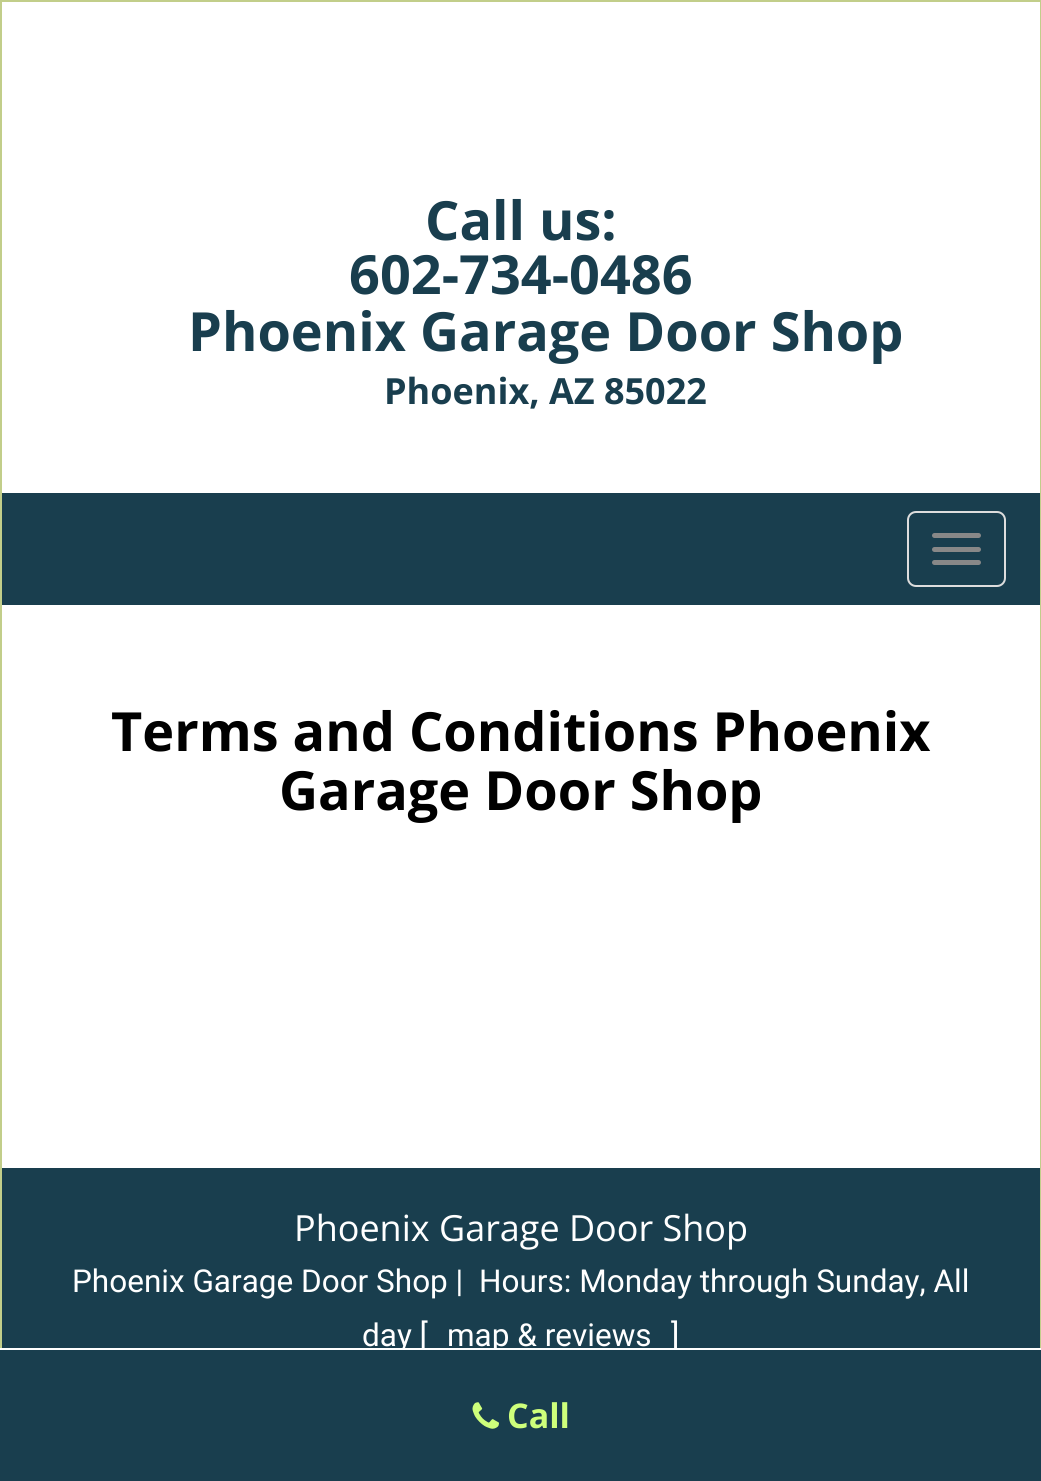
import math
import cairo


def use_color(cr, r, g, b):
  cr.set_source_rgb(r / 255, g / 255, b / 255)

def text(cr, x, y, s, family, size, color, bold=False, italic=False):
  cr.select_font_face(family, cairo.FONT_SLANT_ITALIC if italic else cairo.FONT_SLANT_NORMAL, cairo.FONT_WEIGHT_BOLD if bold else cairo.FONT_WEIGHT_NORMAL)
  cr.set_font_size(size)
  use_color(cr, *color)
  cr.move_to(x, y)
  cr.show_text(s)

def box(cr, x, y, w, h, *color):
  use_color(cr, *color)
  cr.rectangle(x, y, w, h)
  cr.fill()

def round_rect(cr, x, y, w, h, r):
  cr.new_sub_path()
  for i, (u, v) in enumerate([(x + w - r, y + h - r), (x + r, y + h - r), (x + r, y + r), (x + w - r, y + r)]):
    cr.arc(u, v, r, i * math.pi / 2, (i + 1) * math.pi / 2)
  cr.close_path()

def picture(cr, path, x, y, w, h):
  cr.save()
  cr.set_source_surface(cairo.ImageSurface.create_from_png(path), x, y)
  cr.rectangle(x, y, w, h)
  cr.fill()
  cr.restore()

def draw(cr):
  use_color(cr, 255, 255, 255)
  cr.paint()
  cr.rectangle(1, 1, 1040, 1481)
  use_color(cr, 194, 206, 138)
  cr.stroke()
  box(cr, 2, 493, 1038, 112, 25, 62, 78)
  round_rect(cr, 908, 512, 97, 74, 8)
  use_color(cr, 221, 221, 221)
  cr.stroke()
  use_color(cr, 136, 136, 136)
  round_rect(cr, 932, 533, 49, 5, 2.5)
  cr.fill()
  round_rect(cr, 932, 547, 49, 5, 2.5)
  cr.fill()
  round_rect(cr, 932, 560, 49, 5, 2.5)
  cr.fill()
  box(cr, 2, 1168, 1038, 180, 25, 62, 78)
  box(cr, 0, 1348, 1041, 2, 255, 255, 255)
  text(cr, 425, 240, "Call us:", "Open Sans", 54, (25, 62, 78), bold=True)
  text(cr, 349, 294, "602-734-0486", "Open Sans", 54, (25, 62, 78), bold=True)
  text(cr, 188, 351, "Phoenix Garage Door Shop", "Open Sans", 54, (25, 62, 78), bold=True)
  text(cr, 384, 404, "Phoenix, AZ 85022", "Open Sans", 36, (25, 62, 78), bold=True)
  text(cr, 111, 751, "Terms and Conditions Phoenix", "Open Sans", 54, (0, 0, 0), bold=True)
  text(cr, 279, 810, "Garage Door Shop", "Open Sans", 54, (0, 0, 0), bold=True)
  text(cr, 294, 1241, "Phoenix Garage Door Shop", "Open Sans", 36, (255, 255, 255))
  text(cr, 72, 1292, "Phoenix Garage Door Shop |", "Roboto", 31.5, (255, 255, 255))
  text(cr, 479, 1292, "Hours: Monday through Sunday, All", "Roboto", 31.5, (255, 255, 255))
  text(cr, 362, 1346, "day [", "Roboto", 31.5, (255, 255, 255))
  text(cr, 447, 1346, "map & reviews", "Roboto", 31.5, (255, 255, 255))
  text(cr, 671, 1346, "]", "Roboto", 31.5, (255, 255, 255))
  box(cr, 0, 1350, 1041, 131, 25, 62, 78)
  picture(cr, "img_01.png", 472, 1402, 27, 27)
  text(cr, 507, 1428, "Call", "Open Sans", 34, (206, 255, 123), bold=True)


surface = cairo.ImageSurface(cairo.FORMAT_RGB24, 1041, 1481)
cr = cairo.Context(surface)
options = cairo.FontOptions()
options.set_hint_metrics(cairo.HINT_METRICS_OFF)
options.set_hint_style(cairo.HINT_STYLE_NONE)
cr.set_font_options(options)
cr.set_miter_limit(4)
draw(cr)
surface.write_to_png("out.png")
